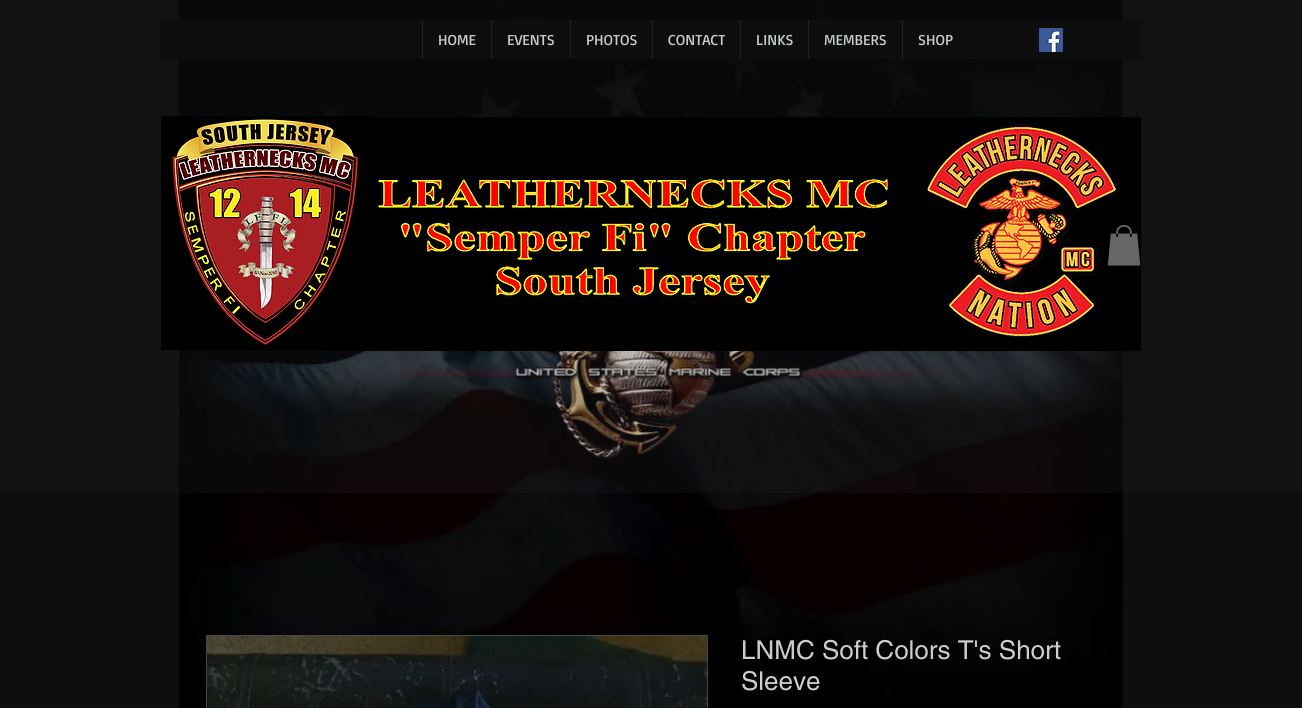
import math
import cairo


def use_color(cr, r, g, b):
  cr.set_source_rgb(r / 255, g / 255, b / 255)

def text(cr, x, y, s, family, size, color, bold=False, italic=False):
  cr.select_font_face(family, cairo.FONT_SLANT_ITALIC if italic else cairo.FONT_SLANT_NORMAL, cairo.FONT_WEIGHT_BOLD if bold else cairo.FONT_WEIGHT_NORMAL)
  cr.set_font_size(size)
  use_color(cr, *color)
  cr.move_to(x, y)
  cr.show_text(s)

def box(cr, x, y, w, h, *color):
  use_color(cr, *color)
  cr.rectangle(x, y, w, h)
  cr.fill()

def picture(cr, path, x, y, w, h):
  cr.save()
  cr.set_source_surface(cairo.ImageSurface.create_from_png(path), x, y)
  cr.rectangle(x, y, w, h)
  cr.fill()
  cr.restore()

def draw(cr):
  use_color(cr, 13, 14, 14)
  cr.paint()
  picture(cr, "img_01.png", 179, 0, 944, 708)
  cr.set_source_rgba(0.133, 0.133, 0.133, 0.25)
  cr.rectangle(0, 0, 1302, 493)
  cr.fill()
  box(cr, 161, 20, 980, 39, 13, 14, 14)
  box(cr, 422, 20, 1, 39, 34, 34, 34)
  box(cr, 491, 20, 1, 39, 34, 34, 34)
  box(cr, 570, 20, 1, 39, 34, 34, 34)
  box(cr, 652, 20, 1, 39, 34, 34, 34)
  box(cr, 740, 20, 1, 39, 34, 34, 34)
  box(cr, 808, 20, 1, 39, 34, 34, 34)
  box(cr, 902, 20, 1, 39, 34, 34, 34)
  picture(cr, "img_02.png", 1039, 28, 24, 24)
  picture(cr, "img_04.png", 325, 117, 816, 234)
  picture(cr, "img_03.png", 161, 116, 210, 234)
  picture(cr, "img_05.png", 1107, 225, 34, 41)
  cr.rectangle(206.5, 635.5, 501, 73)
  use_color(cr, 68, 71, 71)
  cr.set_line_width(1)
  cr.stroke()
  picture(cr, "img_06.png", 207, 636, 500, 72)
  text(cr, 438, 45, "HOME", "Basic", 15, (202, 206, 206))
  text(cr, 507, 45, "EVENTS", "Basic", 15, (202, 206, 206))
  text(cr, 586, 45, "PHOTOS", "Basic", 15, (202, 206, 206))
  text(cr, 668, 45, "CONTACT", "Basic", 15, (202, 206, 206))
  text(cr, 756, 45, "LINKS", "Basic", 15, (202, 206, 206))
  text(cr, 824, 45, "MEMBERS", "Basic", 15, (202, 206, 206))
  text(cr, 918, 45, "SHOP", "Basic", 15, (202, 206, 206))
  text(cr, 741, 659, "LNMC Soft Colors T's Short", "helvetica", 26, (202, 206, 206))
  text(cr, 741, 690, "Sleeve", "helvetica", 26, (202, 206, 206))


surface = cairo.ImageSurface(cairo.FORMAT_RGB24, 1302, 708)
cr = cairo.Context(surface)
options = cairo.FontOptions()
options.set_hint_metrics(cairo.HINT_METRICS_OFF)
options.set_hint_style(cairo.HINT_STYLE_NONE)
cr.set_font_options(options)
cr.set_miter_limit(4)
draw(cr)
surface.write_to_png("out.png")
